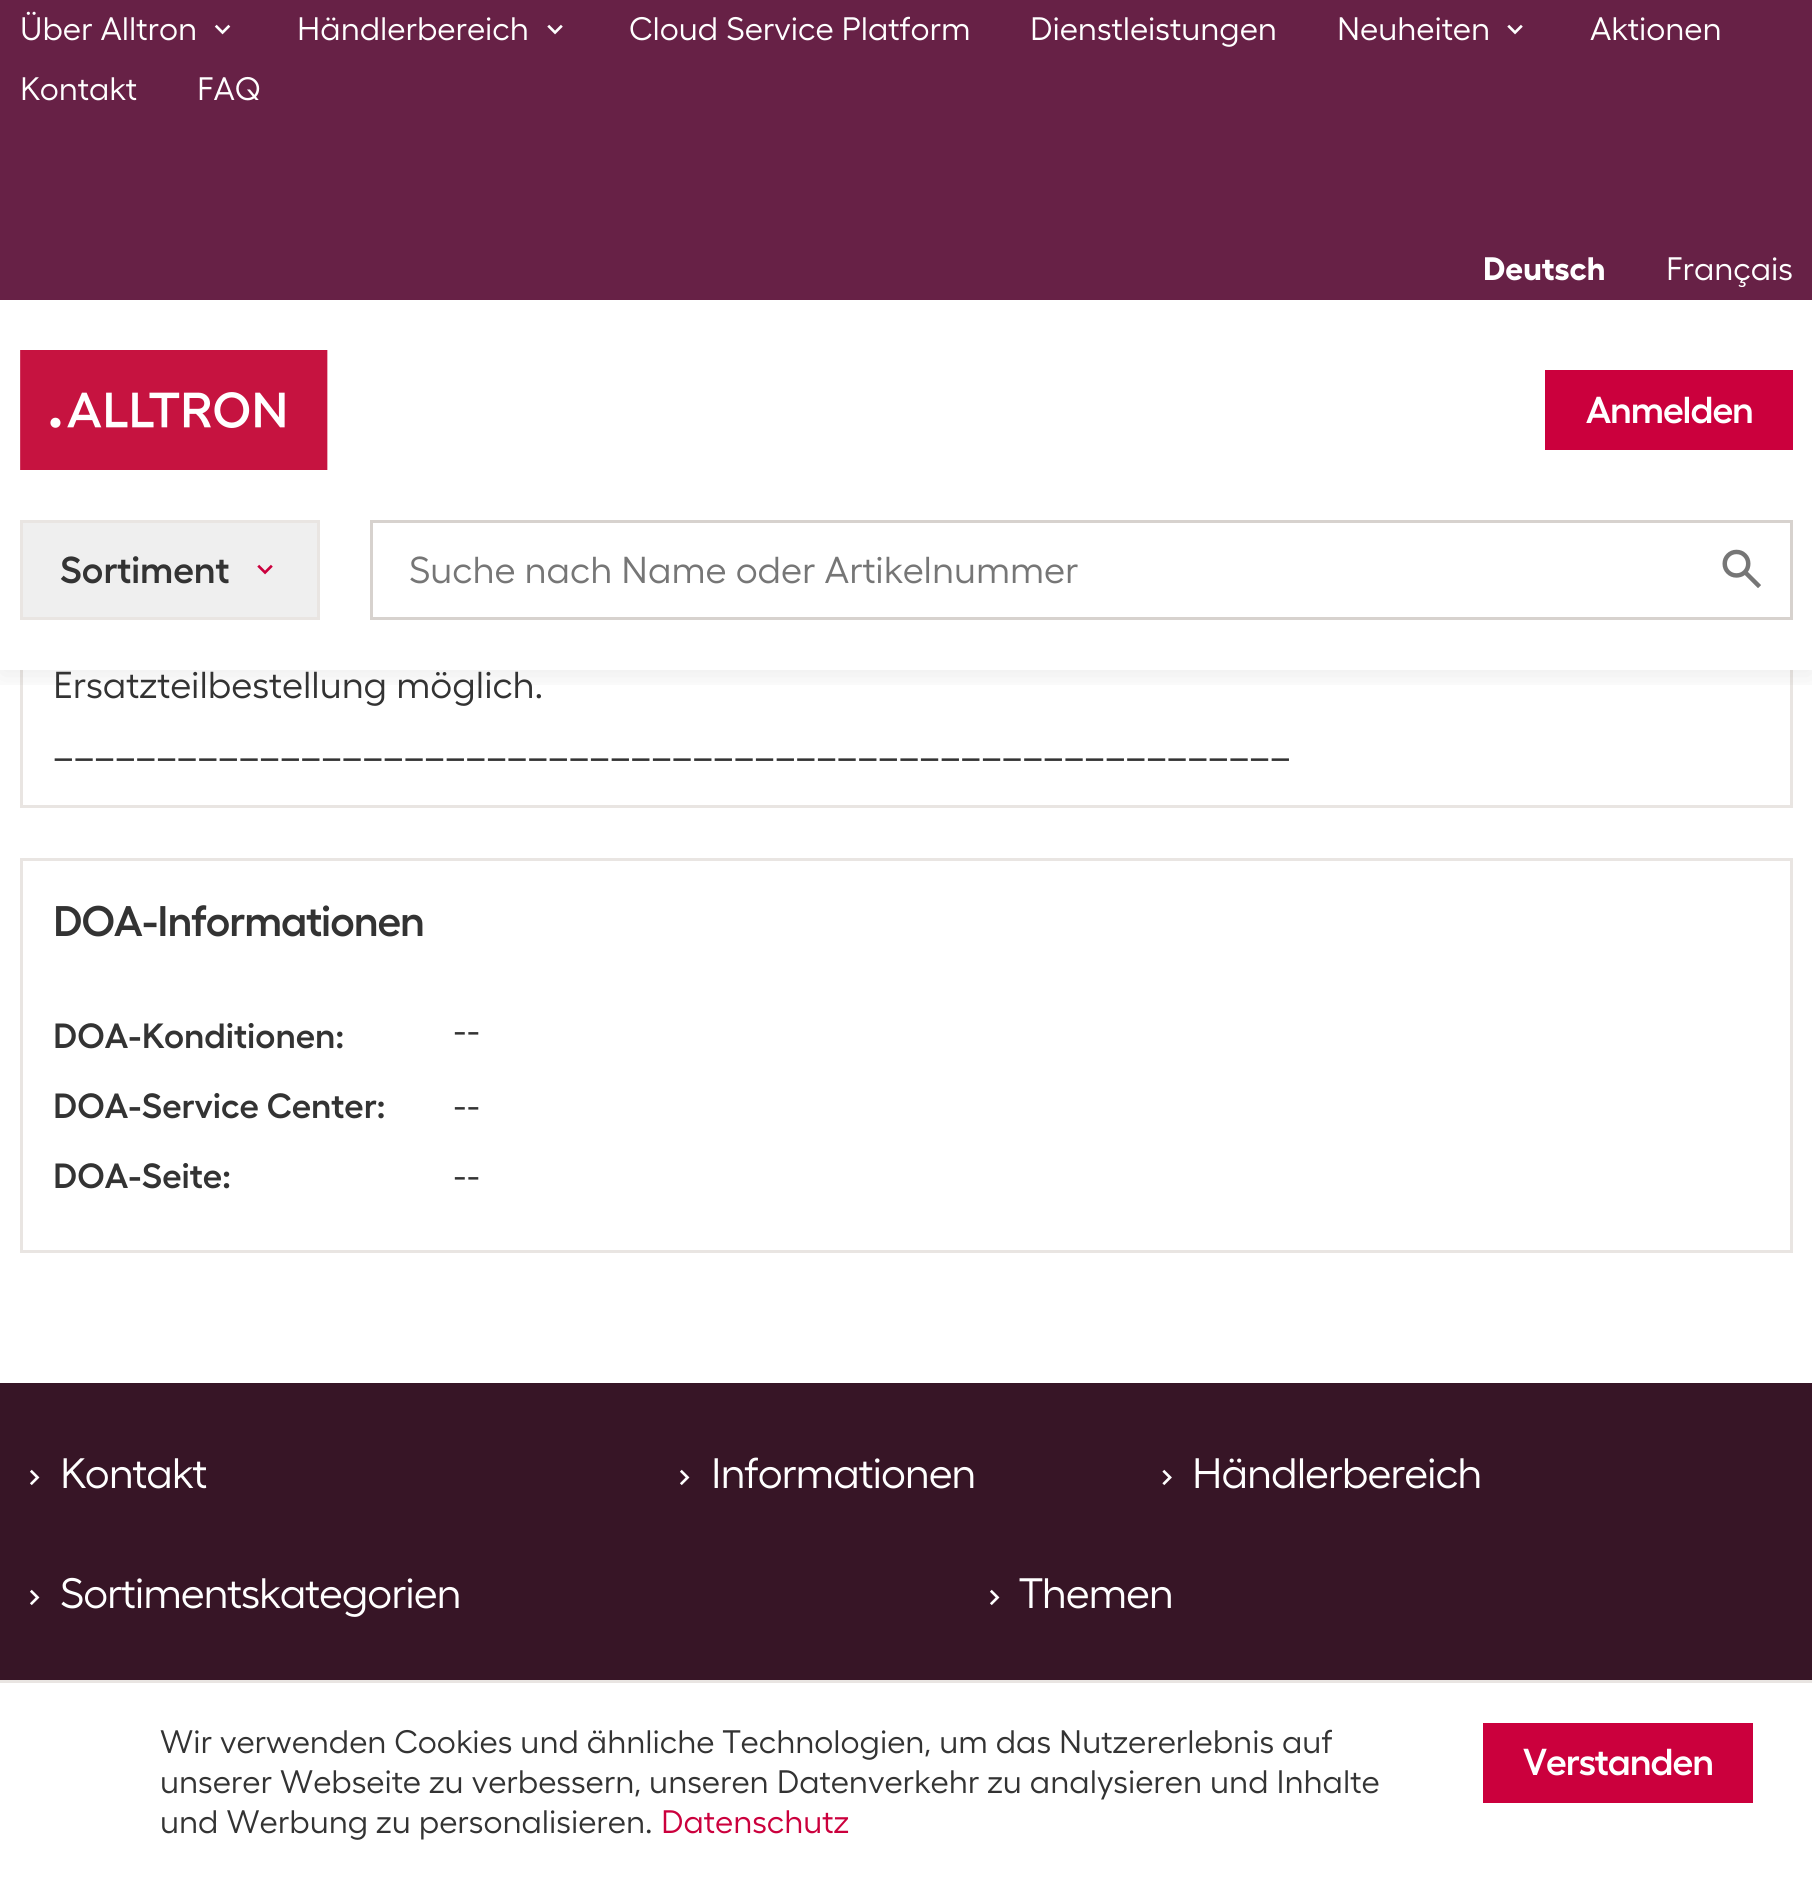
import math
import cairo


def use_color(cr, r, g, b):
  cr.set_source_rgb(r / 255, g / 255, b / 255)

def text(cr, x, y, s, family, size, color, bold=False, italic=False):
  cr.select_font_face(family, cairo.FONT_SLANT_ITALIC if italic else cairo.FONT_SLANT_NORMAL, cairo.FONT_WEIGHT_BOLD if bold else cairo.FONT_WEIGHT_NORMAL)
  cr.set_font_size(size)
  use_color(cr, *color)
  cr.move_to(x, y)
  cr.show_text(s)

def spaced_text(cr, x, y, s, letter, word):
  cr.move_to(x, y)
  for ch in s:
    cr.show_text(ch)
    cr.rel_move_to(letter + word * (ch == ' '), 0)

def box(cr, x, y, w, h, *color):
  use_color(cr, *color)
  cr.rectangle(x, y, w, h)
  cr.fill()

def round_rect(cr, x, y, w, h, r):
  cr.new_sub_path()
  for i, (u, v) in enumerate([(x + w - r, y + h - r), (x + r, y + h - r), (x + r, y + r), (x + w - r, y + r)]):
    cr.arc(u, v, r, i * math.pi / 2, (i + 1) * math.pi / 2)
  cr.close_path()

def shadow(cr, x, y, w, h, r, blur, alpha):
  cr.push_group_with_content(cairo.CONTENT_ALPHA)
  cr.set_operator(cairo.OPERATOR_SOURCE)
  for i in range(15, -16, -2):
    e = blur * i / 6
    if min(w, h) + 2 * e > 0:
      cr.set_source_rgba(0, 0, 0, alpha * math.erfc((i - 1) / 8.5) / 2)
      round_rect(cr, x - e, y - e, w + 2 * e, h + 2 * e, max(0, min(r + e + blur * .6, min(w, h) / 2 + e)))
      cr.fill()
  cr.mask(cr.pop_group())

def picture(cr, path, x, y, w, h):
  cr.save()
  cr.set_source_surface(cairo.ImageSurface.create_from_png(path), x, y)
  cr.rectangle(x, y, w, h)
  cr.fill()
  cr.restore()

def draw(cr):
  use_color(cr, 255, 255, 255)
  cr.paint()
  cr.rectangle(21.5, -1.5, 1770, 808)
  use_color(cr, 233, 229, 226)
  cr.set_line_width(3)
  cr.stroke()
  box(cr, 20, 300, 1773, 370, 255, 255, 255)
  cr.save()
  cr.rectangle(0, 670, 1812, 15)
  cr.clip()
  use_color(cr, 0, 0, 0)
  shadow(cr, 0, 5, 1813, 670, 0, 15, 0.08)
  cr.restore()
  box(cr, 0, 0, 1812, 300, 103, 33, 70)
  picture(cr, "img_01.png", 214, 24, 17, 11)
  picture(cr, "img_02.png", 547, 24, 16, 11)
  picture(cr, "img_02.png", 1507, 24, 16, 11)
  picture(cr, "img_03.png", 20, 350, 308, 120)
  box(cr, 1545, 370, 248, 80, 203, 0, 61)
  use_color(cr, 239, 239, 239)
  cr.rectangle(21.5, 521.5, 297, 97)
  cr.fill_preserve()
  use_color(cr, 233, 229, 226)
  cr.stroke()
  picture(cr, "img_04.png", 257, 564, 16, 11)
  cr.rectangle(371.5, 521.5, 1420, 97)
  use_color(cr, 215, 210, 206)
  cr.stroke()
  picture(cr, "img_05.png", 1722, 549, 39, 39)
  cr.rectangle(21.5, 859.5, 1770, 392)
  use_color(cr, 233, 229, 226)
  cr.stroke()
  box(cr, 0, 1383, 1812, 297, 55, 21, 38)
  picture(cr, "img_06.png", 30, 1469, 10, 17)
  picture(cr, "img_06.png", 680, 1469, 10, 17)
  picture(cr, "img_07.png", 1162, 1469, 10, 17)
  picture(cr, "img_06.png", 30, 1589, 10, 17)
  picture(cr, "img_06.png", 990, 1589, 10, 17)
  box(cr, 0, 1680, 1812, 3, 233, 229, 226)
  box(cr, 1483, 1723, 270, 80, 203, 0, 61)
  text(cr, 20, 40, "Über Alltron", "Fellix", 32.5, (255, 255, 255))
  text(cr, 297, 40, "Händlerbereich", "Fellix", 32.5, (255, 255, 255))
  text(cr, 629, 40, "Cloud Service Platform", "Fellix", 32.5, (255, 255, 255))
  text(cr, 1030, 40, "Dienstleistungen", "Fellix", 32.5, (255, 255, 255))
  text(cr, 1337, 40, "Neuheiten", "Fellix", 32.5, (255, 255, 255))
  text(cr, 1590, 40, "Aktionen", "Fellix", 32.5, (255, 255, 255))
  text(cr, 20, 100, "Kontakt", "Fellix", 32.5, (255, 255, 255))
  text(cr, 197, 100, "FAQ", "Fellix", 32.5, (255, 255, 255))
  text(cr, 1483, 280, "Deutsch", "Fellix", 32.5, (255, 255, 255), bold=True)
  text(cr, 1666, 280, "Français", "Fellix", 32.5, (255, 255, 255))
  cr.select_font_face("Fellix SemiBold")
  cr.set_font_size(37.5)
  spaced_text(cr, 1586, 423, "Anmelden", -1, 0)
  text(cr, 60, 583, "Sortiment", "Fellix SemiBold", 37.5, (51, 51, 51))
  text(cr, 409, 583, "Suche nach Name oder Artikelnummer", "Fellix", 37.5, (118, 118, 118))
  text(cr, 53, 698, "Ersatzteilbestellung möglich.", "Fellix", 37.5, (51, 51, 51))
  text(cr, 53, 758, "____________________________________________________________", "Fellix", 37.5, (51, 51, 51))
  cr.select_font_face("Fellix SemiBold")
  cr.set_font_size(42.75)
  spaced_text(cr, 53, 936, "DOA-Informationen", -1, 0)
  text(cr, 53, 1048, "DOA-Konditionen:", "Fellix SemiBold", 35, (51, 51, 51))
  text(cr, 453, 1043, "--", "Fellix", 37.5, (51, 51, 51))
  text(cr, 53, 1118, "DOA-Service Center:", "Fellix SemiBold", 35, (51, 51, 51))
  text(cr, 453, 1118, "--", "Fellix", 37.5, (51, 51, 51))
  text(cr, 53, 1188, "DOA-Seite:", "Fellix SemiBold", 35, (51, 51, 51))
  text(cr, 453, 1188, "--", "Fellix", 37.5, (51, 51, 51))
  cr.set_font_size(42.5)
  use_color(cr, 255, 255, 255)
  spaced_text(cr, 60, 1488, "Kontakt", -1, 0)
  spaced_text(cr, 711, 1488, "Informationen", -1, 0)
  spaced_text(cr, 1192, 1488, "Händlerbereich", -1, 0)
  spaced_text(cr, 60, 1608, "Sortimentskategorien", -1, 0)
  spaced_text(cr, 1019, 1608, "Themen", -1, 0)
  text(cr, 160, 1753, "Wir verwenden Cookies und ähnliche Technologien, um das Nutzererlebnis auf", "Fellix", 32.5, (51, 51, 51))
  text(cr, 160, 1793, "unserer Webseite zu verbessern, unseren Datenverkehr zu analysieren und Inhalte", "Fellix", 32.5, (51, 51, 51))
  text(cr, 160, 1833, "und Werbung zu personalisieren.", "Fellix", 32.5, (51, 51, 51))
  text(cr, 661, 1833, "Datenschutz", "Fellix", 32.5, (203, 0, 61))
  cr.select_font_face("Fellix SemiBold")
  cr.set_font_size(37.5)
  use_color(cr, 255, 255, 255)
  spaced_text(cr, 1523, 1775, "Verstanden", -1, 0)


surface = cairo.ImageSurface(cairo.FORMAT_RGB24, 1812, 1882)
cr = cairo.Context(surface)
options = cairo.FontOptions()
options.set_hint_metrics(cairo.HINT_METRICS_OFF)
options.set_hint_style(cairo.HINT_STYLE_NONE)
cr.set_font_options(options)
cr.set_miter_limit(4)
draw(cr)
surface.write_to_png("out.png")
